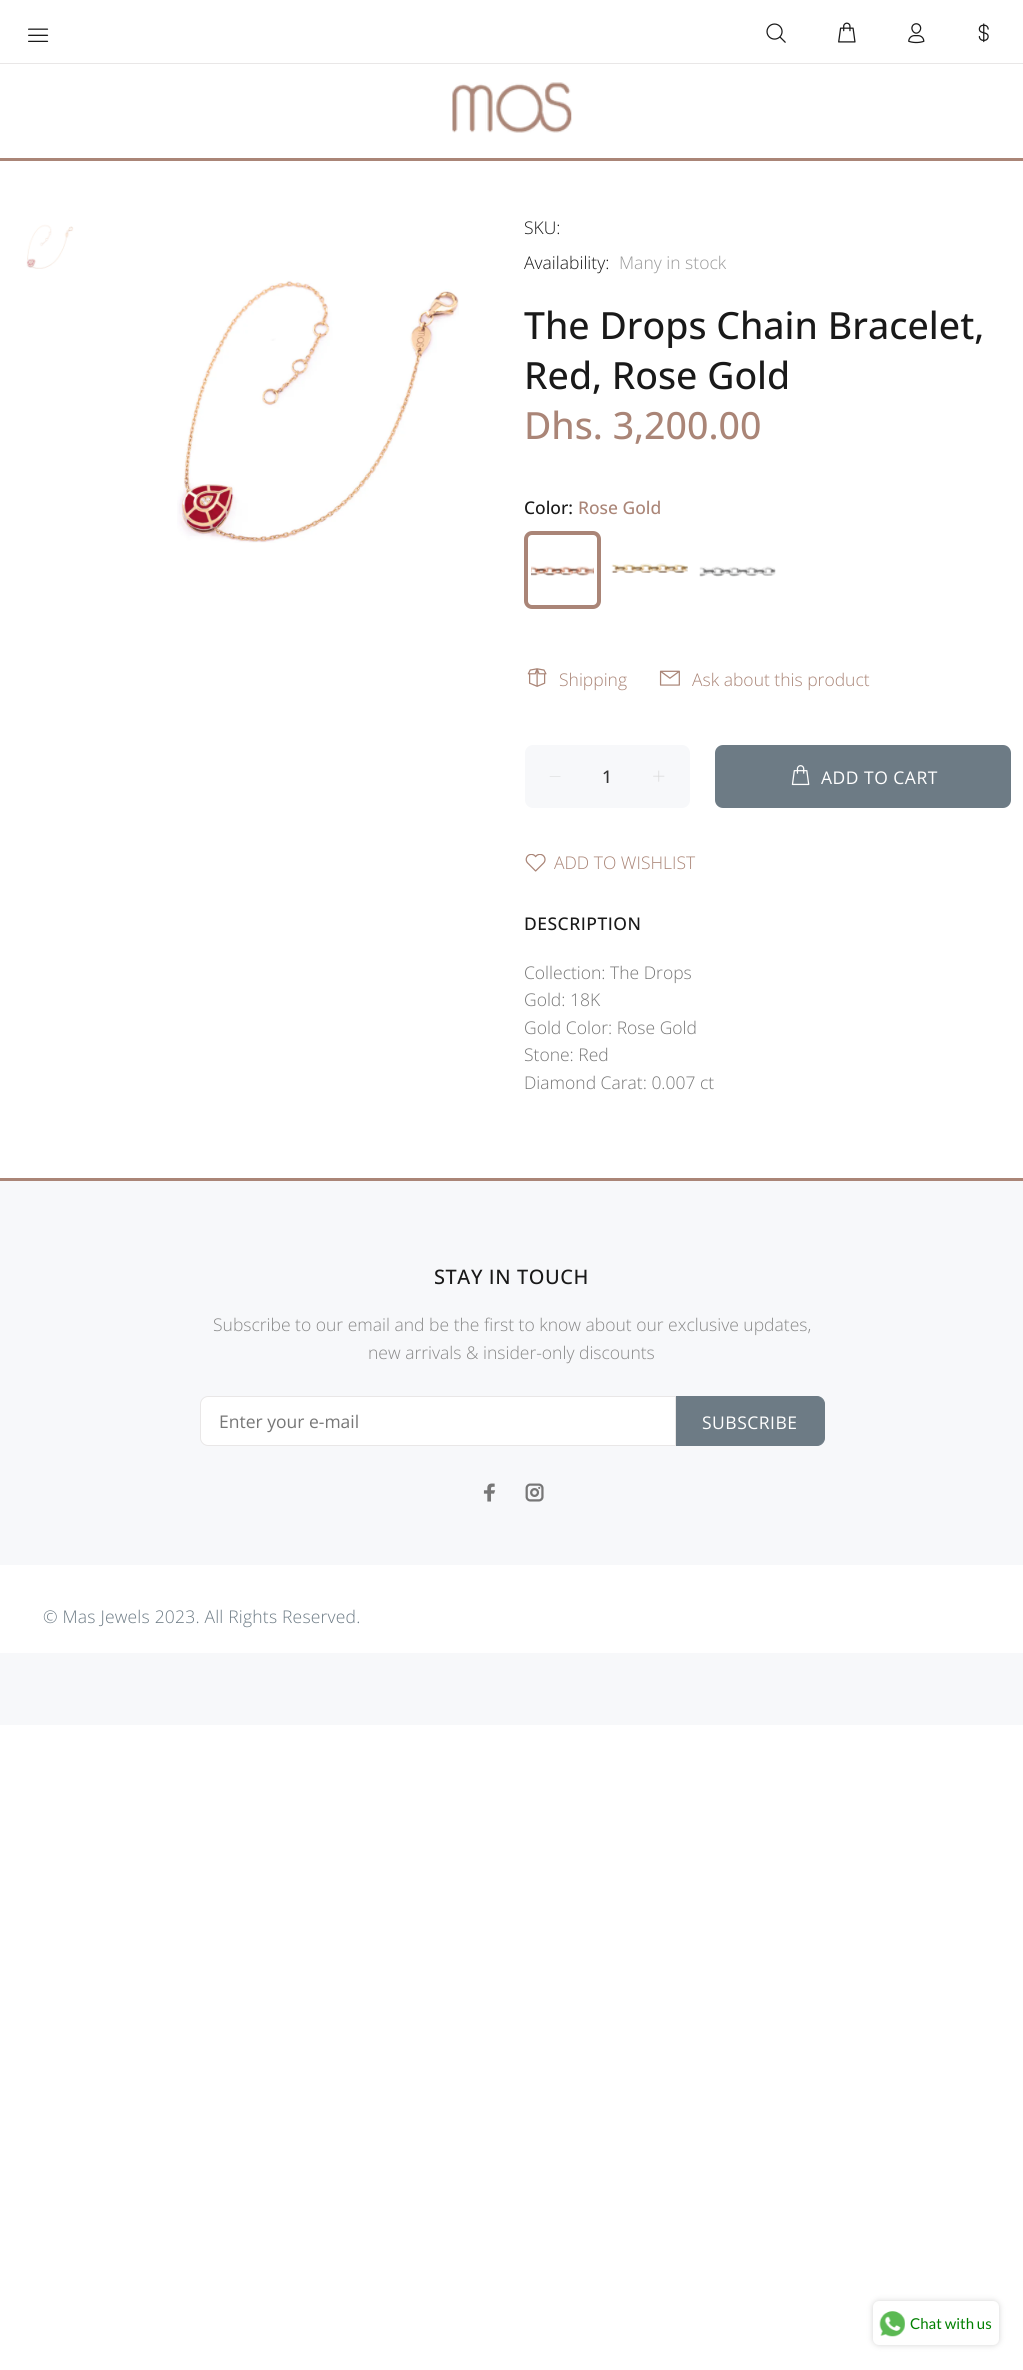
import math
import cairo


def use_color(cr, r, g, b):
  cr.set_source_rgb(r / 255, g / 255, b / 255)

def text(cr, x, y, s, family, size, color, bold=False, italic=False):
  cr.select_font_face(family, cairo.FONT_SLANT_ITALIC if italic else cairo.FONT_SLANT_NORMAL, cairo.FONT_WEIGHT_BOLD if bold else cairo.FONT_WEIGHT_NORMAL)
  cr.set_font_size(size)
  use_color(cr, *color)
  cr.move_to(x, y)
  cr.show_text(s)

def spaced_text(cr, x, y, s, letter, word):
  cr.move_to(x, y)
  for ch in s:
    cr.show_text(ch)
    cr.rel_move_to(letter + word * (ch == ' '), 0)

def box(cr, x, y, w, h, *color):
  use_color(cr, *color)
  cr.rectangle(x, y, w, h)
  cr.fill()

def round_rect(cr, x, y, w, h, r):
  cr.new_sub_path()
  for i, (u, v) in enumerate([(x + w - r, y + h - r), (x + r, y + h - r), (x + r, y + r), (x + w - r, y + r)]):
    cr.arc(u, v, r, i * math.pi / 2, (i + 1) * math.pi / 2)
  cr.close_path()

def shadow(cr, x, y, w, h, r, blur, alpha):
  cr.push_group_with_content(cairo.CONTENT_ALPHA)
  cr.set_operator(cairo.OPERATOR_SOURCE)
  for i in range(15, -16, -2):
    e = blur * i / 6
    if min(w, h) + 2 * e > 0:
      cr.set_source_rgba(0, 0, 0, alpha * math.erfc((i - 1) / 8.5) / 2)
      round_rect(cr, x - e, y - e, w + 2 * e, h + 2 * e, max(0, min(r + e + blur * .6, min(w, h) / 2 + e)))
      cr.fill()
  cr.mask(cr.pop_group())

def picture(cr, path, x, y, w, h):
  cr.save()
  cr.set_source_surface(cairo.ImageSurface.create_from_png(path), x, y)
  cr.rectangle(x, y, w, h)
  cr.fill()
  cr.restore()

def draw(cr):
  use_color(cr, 255, 255, 255)
  cr.paint()
  box(cr, 0, 158, 1023, 3, 170, 133, 119)
  picture(cr, "img_01.png", 28, 28, 21, 14)
  picture(cr, "img_02.png", 766, 23, 20, 20)
  picture(cr, "img_03.png", 838, 22, 18, 21)
  picture(cr, "img_04.png", 908, 23, 17, 21)
  picture(cr, "img_05.png", 978, 23, 11, 20)
  box(cr, 0, 63, 1023, 1, 233, 231, 231)
  picture(cr, "img_06.png", 452, 82, 120, 51)
  picture(cr, "img_07.png", 26, 224, 48, 45)
  picture(cr, "img_08.png", 177, 280, 282, 263)
  picture(cr, "img_09.png", 531, 566, 63, 10)
  round_rect(cr, 526, 533, 73, 74, 6)
  use_color(cr, 170, 133, 119)
  cr.set_line_width(4)
  cr.stroke()
  picture(cr, "img_10.png", 611, 563, 77, 11)
  picture(cr, "img_11.png", 699, 566, 77, 11)
  picture(cr, "img_12.png", 527, 668, 20, 19)
  picture(cr, "img_13.png", 659, 670, 21, 16)
  use_color(cr, 247, 248, 250)
  round_rect(cr, 525, 745, 165, 63, 8)
  cr.fill()
  use_color(cr, 216, 216, 216)
  cr.new_path()
  cr.move_to(560.5, 776)
  cr.line_to(560.5, 776.5)
  cr.line_to(549.5, 776.5)
  cr.line_to(550, 776)
  cr.close_path()
  cr.fill()
  picture(cr, "img_14.png", 653, 770, 12, 12)
  use_color(cr, 109, 123, 133)
  round_rect(cr, 715, 745, 296, 63, 8)
  cr.fill()
  picture(cr, "img_15.png", 791, 765, 19, 21)
  picture(cr, "img_16.png", 525, 854, 21, 18)
  box(cr, 0, 1181, 1023, 544, 247, 248, 250)
  box(cr, 0, 1178, 1023, 3, 170, 133, 119)
  use_color(cr, 255, 255, 255)
  cr.new_path()
  cr.move_to(208, 1396.5)
  cr.line_to(675.5, 1396.5)
  cr.line_to(675.5, 1445.5)
  cr.line_to(208, 1445.5)
  cr.curve_to(204, 1445.5, 200.5, 1442, 200.5, 1438)
  cr.line_to(200.5, 1404)
  cr.curve_to(200.5, 1400, 204, 1396.5, 208, 1396.5)
  cr.close_path()
  cr.fill_preserve()
  use_color(cr, 233, 231, 231)
  cr.set_line_width(1)
  cr.stroke()
  use_color(cr, 109, 123, 133)
  cr.new_path()
  cr.move_to(676.5, 1396.5)
  cr.line_to(817, 1396.5)
  cr.curve_to(821, 1396.5, 824.5, 1400, 824.5, 1404)
  cr.line_to(824.5, 1438)
  cr.curve_to(824.5, 1442, 821, 1445.5, 817, 1445.5)
  cr.line_to(676.5, 1445.5)
  cr.close_path()
  cr.fill_preserve()
  cr.stroke()
  picture(cr, "img_17.png", 483, 1483, 13, 19)
  picture(cr, "img_18.png", 525, 1483, 19, 19)
  box(cr, 0, 1565, 1023, 88, 255, 255, 255)
  use_color(cr, 211, 211, 211)
  shadow(cr, 873, 2301, 126, 44, 6, 3, 1)
  use_color(cr, 255, 255, 255)
  round_rect(cr, 873, 2301, 126, 44, 6)
  cr.fill()
  picture(cr, "img_19.png", 879, 2311, 26, 26)
  text(cr, 524, 234, "SKU:", "Open Sans Light", 17.5, (25, 25, 25))
  text(cr, 524, 269, "Availability:", "Open Sans Light", 17.5, (25, 25, 25))
  text(cr, 619, 269, "Many in stock", "Open Sans Light", 17.5, (153, 153, 153))
  text(cr, 524, 339, "The Drops Chain Bracelet,", "Open Sans Medium", 37.5, (25, 25, 25))
  text(cr, 524, 389, "Red, Rose Gold", "Open Sans Medium", 37.5, (25, 25, 25))
  text(cr, 524, 439, "Dhs. 3,200.00", "Open Sans Medium", 37.5, (170, 133, 119))
  text(cr, 524, 514, "Color:", "Open Sans Medium", 17.5, (25, 25, 25))
  text(cr, 578, 514, "Rose Gold", "Open Sans Medium", 17.5, (170, 133, 119))
  text(cr, 559, 686, "Shipping", "Open Sans Light", 17.5, (170, 133, 119))
  text(cr, 692, 686, "Ask about this product", "Open Sans Light", 17.5, (170, 133, 119))
  text(cr, 602, 783, "1", "Open Sans Medium", 17.5, (51, 51, 51))
  cr.select_font_face("Open Sans")
  use_color(cr, 255, 255, 255)
  spaced_text(cr, 821, 784, "ADD TO CART", 0.5, 0)
  text(cr, 554, 869, "ADD TO WISHLIST", "Open Sans Light", 17.5, (170, 133, 119))
  cr.select_font_face("Open Sans Medium")
  use_color(cr, 25, 25, 25)
  spaced_text(cr, 524, 930, "DESCRIPTION", 0.5, 0)
  text(cr, 524, 979, "Collection: The Drops", "Open Sans Light", 17.5, (119, 119, 119))
  text(cr, 524, 1006, "Gold: 18K", "Open Sans Light", 17.5, (119, 119, 119))
  text(cr, 524, 1034, "Gold Color: Rose Gold", "Open Sans Light", 17.5, (119, 119, 119))
  text(cr, 524, 1061, "Stone: Red", "Open Sans Light", 17.5, (119, 119, 119))
  text(cr, 524, 1089, "Diamond Carat: 0.007 ct", "Open Sans Light", 17.5, (119, 119, 119))
  cr.select_font_face("Open Sans Medium")
  cr.set_font_size(20)
  use_color(cr, 25, 25, 25)
  spaced_text(cr, 434, 1284, "STAY IN TOUCH", 0.6, 0)
  text(cr, 213, 1331, "Subscribe to our email and be the first to know about our exclusive updates,", "Open Sans Light", 17.5, (136, 136, 136))
  text(cr, 368, 1359, "new arrivals & insider-only discounts", "Open Sans Light", 17.5, (136, 136, 136))
  text(cr, 219, 1428, "Enter your e-mail", "Open Sans", 17.5, (119, 119, 119))
  use_color(cr, 255, 255, 255)
  spaced_text(cr, 702, 1429, "SUBSCRIBE", 0.5, 0)
  cr.select_font_face("Open Sans Light")
  use_color(cr, 109, 123, 133)
  spaced_text(cr, 43, 1623, "© Mas Jewels 2023. All Rights Reserved.", 0.2, 0)
  text(cr, 910, 2329, "Chat with us", "Lato", 15, (0, 128, 0))


surface = cairo.ImageSurface(cairo.FORMAT_RGB24, 1023, 2370)
cr = cairo.Context(surface)
options = cairo.FontOptions()
options.set_hint_metrics(cairo.HINT_METRICS_OFF)
options.set_hint_style(cairo.HINT_STYLE_NONE)
cr.set_font_options(options)
cr.set_miter_limit(4)
draw(cr)
surface.write_to_png("out.png")
